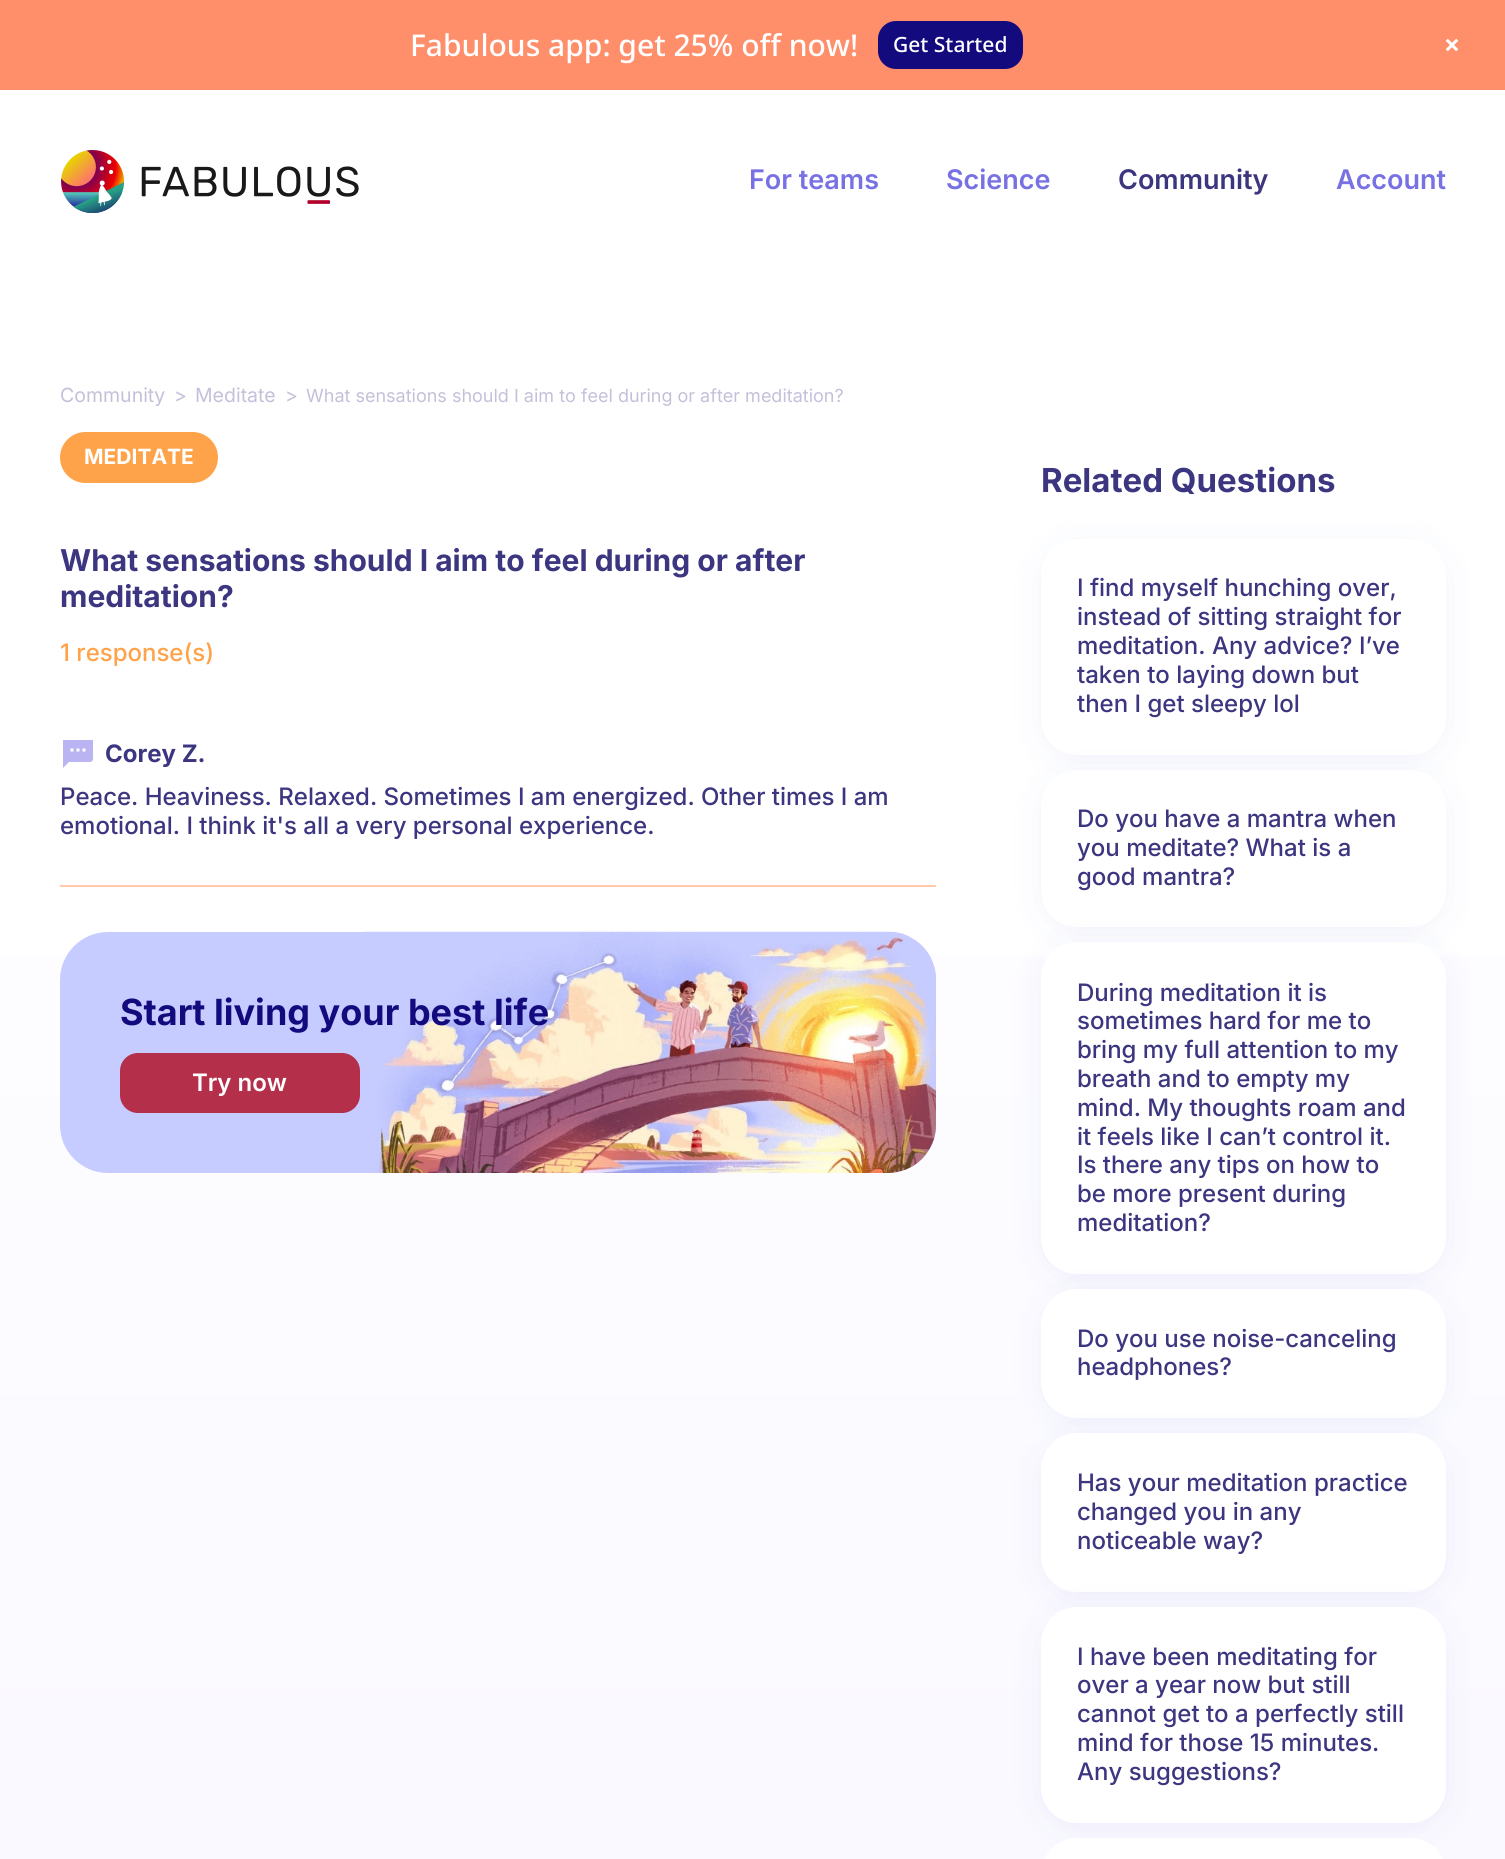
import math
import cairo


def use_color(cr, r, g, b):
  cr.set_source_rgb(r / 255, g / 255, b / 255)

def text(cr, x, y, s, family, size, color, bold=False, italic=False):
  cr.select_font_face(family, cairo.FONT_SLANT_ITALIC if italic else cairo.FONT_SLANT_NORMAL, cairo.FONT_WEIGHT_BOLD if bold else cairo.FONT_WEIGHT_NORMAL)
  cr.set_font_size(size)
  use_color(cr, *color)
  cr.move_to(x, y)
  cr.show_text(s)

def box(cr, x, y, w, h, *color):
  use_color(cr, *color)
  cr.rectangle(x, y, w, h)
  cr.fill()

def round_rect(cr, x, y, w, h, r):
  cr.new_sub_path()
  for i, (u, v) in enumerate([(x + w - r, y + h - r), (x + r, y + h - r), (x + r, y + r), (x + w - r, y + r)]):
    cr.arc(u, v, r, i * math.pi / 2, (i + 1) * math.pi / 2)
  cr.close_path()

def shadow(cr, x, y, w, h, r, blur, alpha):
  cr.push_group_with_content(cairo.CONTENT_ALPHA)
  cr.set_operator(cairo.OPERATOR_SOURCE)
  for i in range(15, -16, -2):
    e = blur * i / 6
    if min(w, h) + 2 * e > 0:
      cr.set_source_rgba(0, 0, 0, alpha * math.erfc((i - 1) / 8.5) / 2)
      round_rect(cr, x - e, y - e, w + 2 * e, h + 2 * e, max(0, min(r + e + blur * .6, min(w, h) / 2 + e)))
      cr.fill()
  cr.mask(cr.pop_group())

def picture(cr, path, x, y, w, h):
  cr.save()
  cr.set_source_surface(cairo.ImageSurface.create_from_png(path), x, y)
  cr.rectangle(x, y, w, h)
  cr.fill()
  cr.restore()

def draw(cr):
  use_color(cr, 255, 255, 255)
  cr.paint()
  box(cr, 0, 0, 1505, 90, 255, 143, 107)
  use_color(cr, 19, 10, 126)
  round_rect(cr, 878, 21, 145, 48, 18)
  cr.fill()
  picture(cr, "img_01.png", 1445, 38, 14, 14)
  picture(cr, "img_02.png", 61, 150, 298, 63)
  gradient = cairo.LinearGradient(753, 348, 753, 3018)
  gradient.add_color_stop_rgba(0, 1, 1, 1, 1)
  gradient.add_color_stop_rgba(1, 0.965, 0.957, 1, 1)
  cr.set_source(gradient)
  cr.rectangle(0, 955, 1505, 904)
  cr.fill()
  use_color(cr, 255, 163, 74)
  round_rect(cr, 60, 432, 158, 51, 25.5)
  cr.fill()
  picture(cr, "img_03.png", 63, 740, 30, 28)
  box(cr, 60, 885, 876, 2, 255, 201, 170)
  use_color(cr, 198, 204, 255)
  round_rect(cr, 60, 932, 876, 241, 48)
  cr.fill()
  picture(cr, "img_04.png", 363, 931, 573, 242)
  use_color(cr, 180, 47, 74)
  round_rect(cr, 120, 1053, 240, 60, 18)
  cr.fill()
  use_color(cr, 39, 54, 195)
  shadow(cr, 1041, 545, 405, 216, 36, 18, 0.06)
  use_color(cr, 255, 255, 255)
  round_rect(cr, 1041, 539, 405, 216, 36)
  cr.fill()
  use_color(cr, 39, 54, 195)
  shadow(cr, 1041, 776, 405, 157, 36, 18, 0.06)
  use_color(cr, 255, 255, 255)
  round_rect(cr, 1041, 770, 405, 157, 36)
  cr.fill()
  use_color(cr, 39, 54, 195)
  shadow(cr, 1041, 948, 405, 332, 36, 18, 0.06)
  use_color(cr, 255, 255, 255)
  round_rect(cr, 1041, 942, 405, 332, 36)
  cr.fill()
  use_color(cr, 39, 54, 195)
  shadow(cr, 1041, 1295, 405, 129, 36, 18, 0.06)
  use_color(cr, 255, 255, 255)
  round_rect(cr, 1041, 1289, 405, 129, 36)
  cr.fill()
  use_color(cr, 39, 54, 195)
  shadow(cr, 1041, 1439, 405, 159, 36, 18, 0.06)
  use_color(cr, 255, 255, 255)
  round_rect(cr, 1041, 1433, 405, 159, 36)
  cr.fill()
  use_color(cr, 39, 54, 195)
  shadow(cr, 1041, 1613, 405, 216, 36, 18, 0.06)
  use_color(cr, 255, 255, 255)
  round_rect(cr, 1041, 1607, 405, 216, 36)
  cr.fill()
  round_rect(cr, 1041, 1838, 405, 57, 36)
  cr.fill()
  text(cr, 410, 56, "Fabulous app: get 25% off now!", "Noto Sans Medium", 30, (255, 255, 255))
  text(cr, 893, 52, "Get Started", "Noto Sans Medium", 21, (255, 255, 255))
  text(cr, 749, 189, "For teams", "Inter SemiBold", 27, (120, 113, 228))
  text(cr, 946, 189, "Science", "Inter SemiBold", 27, (120, 113, 228))
  text(cr, 1118, 189, "Community", "Inter SemiBold", 27, (60, 54, 128))
  text(cr, 1336, 189, "Account", "Inter SemiBold", 27, (120, 113, 228))
  text(cr, 60, 402, "Community", "Inter", 19.5, (195, 193, 218))
  text(cr, 174, 402, ">", "Inter", 19.5, (195, 193, 218))
  text(cr, 195, 402, "Meditate", "Inter", 19.5, (195, 193, 218))
  text(cr, 285, 402, ">", "Inter", 19.5, (195, 193, 218))
  text(cr, 306, 402, "What sensations should I aim to feel during or after meditation?", "Inter", 18, (195, 193, 218))
  text(cr, 84, 464, "MEDITATE", "Inter", 21, (255, 255, 255), bold=True)
  text(cr, 60, 571, "What sensations should I aim to feel during or after", "Inter", 30, (60, 54, 128), bold=True)
  text(cr, 60, 607, "meditation?", "Inter", 30, (60, 54, 128), bold=True)
  text(cr, 60, 661, "1 response(s)", "Inter Medium", 24, (255, 163, 74))
  text(cr, 105, 762, "Corey Z.", "Inter", 24, (60, 54, 128), bold=True)
  text(cr, 60, 805, "Peace. Heaviness. Relaxed. Sometimes I am energized. Other times I am", "Inter Medium", 24, (60, 54, 128))
  text(cr, 60, 834, "emotional. I think it's all a very personal experience.", "Inter Medium", 24, (60, 54, 128))
  text(cr, 120, 1025, "Start living your best life", "Inter", 36, (19, 10, 126), bold=True)
  text(cr, 192, 1091, "Try now", "Inter SemiBold", 24, (255, 255, 255))
  text(cr, 1041, 492, "Related Questions", "Inter", 33, (60, 54, 128), bold=True)
  text(cr, 1077, 596, "I find myself hunching over,", "Inter Medium", 24, (60, 54, 128))
  text(cr, 1077, 625, "instead of sitting straight for", "Inter Medium", 24, (60, 54, 128))
  text(cr, 1077, 654, "meditation. Any advice? I’ve", "Inter Medium", 24, (60, 54, 128))
  text(cr, 1077, 683, "taken to laying down but", "Inter Medium", 24, (60, 54, 128))
  text(cr, 1077, 712, "then I get sleepy lol", "Inter Medium", 24, (60, 54, 128))
  text(cr, 1077, 827, "Do you have a mantra when", "Inter Medium", 24, (60, 54, 128))
  text(cr, 1077, 856, "you meditate? What is a", "Inter Medium", 24, (60, 54, 128))
  text(cr, 1077, 885, "good mantra?", "Inter Medium", 24, (60, 54, 128))
  text(cr, 1077, 1001, "During meditation it is", "Inter Medium", 24, (60, 54, 128))
  text(cr, 1077, 1029, "sometimes hard for me to", "Inter Medium", 24, (60, 54, 128))
  text(cr, 1077, 1058, "bring my full attention to my", "Inter Medium", 24, (60, 54, 128))
  text(cr, 1077, 1087, "breath and to empty my", "Inter Medium", 24, (60, 54, 128))
  text(cr, 1077, 1116, "mind. My thoughts roam and", "Inter Medium", 24, (60, 54, 128))
  text(cr, 1077, 1145, "it feels like I can’t control it.", "Inter Medium", 24, (60, 54, 128))
  text(cr, 1077, 1173, "Is there any tips on how to", "Inter Medium", 24, (60, 54, 128))
  text(cr, 1077, 1202, "be more present during", "Inter Medium", 24, (60, 54, 128))
  text(cr, 1077, 1231, "meditation?", "Inter Medium", 24, (60, 54, 128))
  text(cr, 1077, 1347, "Do you use noise-canceling", "Inter Medium", 24, (60, 54, 128))
  text(cr, 1077, 1375, "headphones?", "Inter Medium", 24, (60, 54, 128))
  text(cr, 1077, 1491, "Has your meditation practice", "Inter Medium", 24, (60, 54, 128))
  text(cr, 1077, 1520, "changed you in any", "Inter Medium", 24, (60, 54, 128))
  text(cr, 1077, 1549, "noticeable way?", "Inter Medium", 24, (60, 54, 128))
  text(cr, 1077, 1665, "I have been meditating for", "Inter Medium", 24, (60, 54, 128))
  text(cr, 1077, 1693, "over a year now but still", "Inter Medium", 24, (60, 54, 128))
  text(cr, 1077, 1722, "cannot get to a perfectly still", "Inter Medium", 24, (60, 54, 128))
  text(cr, 1077, 1751, "mind for those 15 minutes.", "Inter Medium", 24, (60, 54, 128))
  text(cr, 1077, 1780, "Any suggestions?", "Inter Medium", 24, (60, 54, 128))


surface = cairo.ImageSurface(cairo.FORMAT_RGB24, 1505, 1859)
cr = cairo.Context(surface)
options = cairo.FontOptions()
options.set_hint_metrics(cairo.HINT_METRICS_OFF)
options.set_hint_style(cairo.HINT_STYLE_NONE)
cr.set_font_options(options)
cr.set_miter_limit(4)
draw(cr)
surface.write_to_png("out.png")
